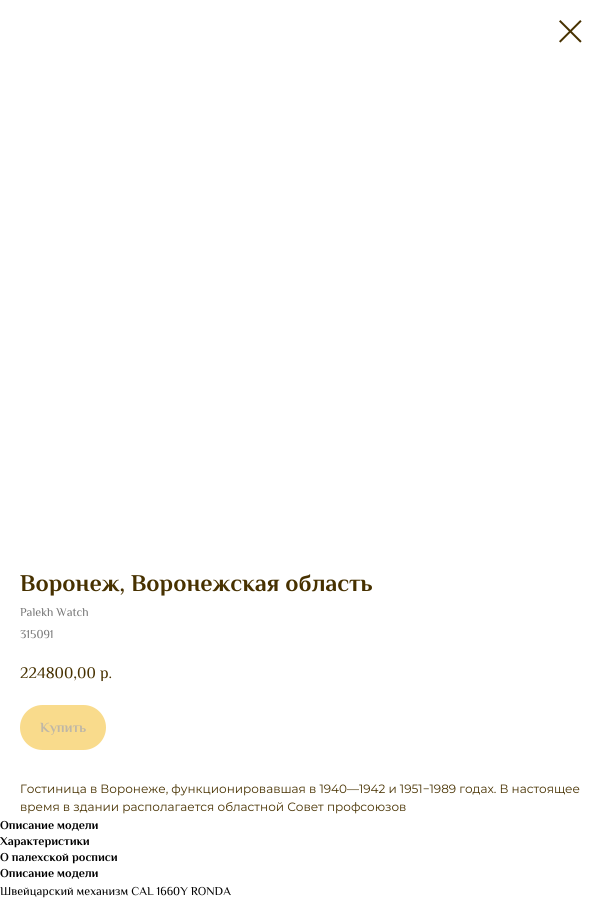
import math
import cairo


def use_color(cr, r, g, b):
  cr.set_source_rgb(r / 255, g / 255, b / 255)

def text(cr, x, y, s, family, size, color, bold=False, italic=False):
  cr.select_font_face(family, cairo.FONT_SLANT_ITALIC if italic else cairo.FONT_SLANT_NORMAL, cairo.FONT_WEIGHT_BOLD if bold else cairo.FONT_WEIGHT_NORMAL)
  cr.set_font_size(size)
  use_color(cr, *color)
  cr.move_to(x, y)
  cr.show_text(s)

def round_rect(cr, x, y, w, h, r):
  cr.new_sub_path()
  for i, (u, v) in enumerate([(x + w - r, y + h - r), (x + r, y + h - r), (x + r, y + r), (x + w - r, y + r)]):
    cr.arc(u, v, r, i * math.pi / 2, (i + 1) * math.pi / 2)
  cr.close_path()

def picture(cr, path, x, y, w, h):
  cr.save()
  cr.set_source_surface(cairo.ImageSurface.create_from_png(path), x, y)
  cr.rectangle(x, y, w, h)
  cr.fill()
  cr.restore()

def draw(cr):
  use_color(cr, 255, 255, 255)
  cr.paint()
  picture(cr, "img_01.png", 559, 20, 23, 23)
  use_color(cr, 249, 219, 140)
  round_rect(cr, 20, 705, 86, 45, 22.5)
  cr.fill()
  text(cr, 20, 591, "Воронеж, Воронежская область", "Philosopher", 24, (71, 49, 0), bold=True)
  text(cr, 20, 616, "Palekh Watch", "Philosopher", 12, (119, 119, 119))
  text(cr, 20, 638, "315091", "Philosopher", 12, (119, 119, 119))
  text(cr, 20, 678, "224800,00", "Philosopher", 16, (71, 49, 0))
  text(cr, 100, 678, "р.", "Philosopher", 16, (71, 49, 0))
  text(cr, 40, 732, "Купить", "Philosopher", 14, (191, 183, 166), bold=True)
  text(cr, 20, 793, "Гостиница в Воронеже, функционировавшая в 1940—1942 и 1951−1989 годах. В настоящее", "Montserrat", 12, (71, 49, 0))
  text(cr, 20, 811, "время в здании располагается областной Совет профсоюзов", "Montserrat", 12, (71, 49, 0))
  text(cr, 0, 829, "Описание модели", "Philosopher", 12, (0, 0, 0), bold=True)
  text(cr, 0, 845, "Характеристики", "Philosopher", 12, (0, 0, 0), bold=True)
  text(cr, 0, 861, "О палехской росписи", "Philosopher", 12, (0, 0, 0), bold=True)
  text(cr, 0, 877, "Описание модели", "Philosopher", 12, (0, 0, 0), bold=True)
  text(cr, 0, 895, "Швейцарский механизм CAL 1660Y RONDA", "Philosopher", 12, (0, 0, 0))


surface = cairo.ImageSurface(cairo.FORMAT_RGB24, 602, 922)
cr = cairo.Context(surface)
options = cairo.FontOptions()
options.set_hint_metrics(cairo.HINT_METRICS_OFF)
options.set_hint_style(cairo.HINT_STYLE_NONE)
cr.set_font_options(options)
cr.set_miter_limit(4)
draw(cr)
surface.write_to_png("out.png")
